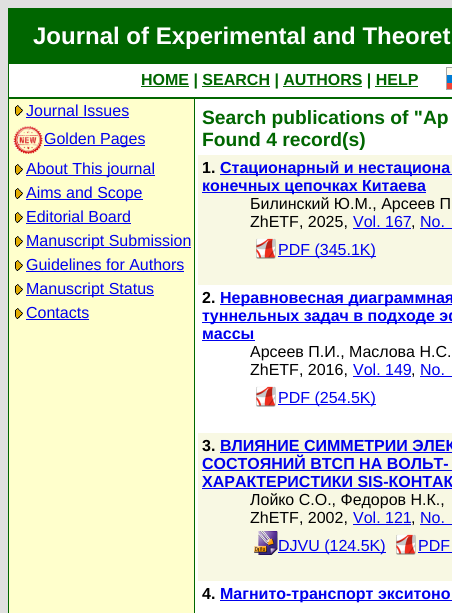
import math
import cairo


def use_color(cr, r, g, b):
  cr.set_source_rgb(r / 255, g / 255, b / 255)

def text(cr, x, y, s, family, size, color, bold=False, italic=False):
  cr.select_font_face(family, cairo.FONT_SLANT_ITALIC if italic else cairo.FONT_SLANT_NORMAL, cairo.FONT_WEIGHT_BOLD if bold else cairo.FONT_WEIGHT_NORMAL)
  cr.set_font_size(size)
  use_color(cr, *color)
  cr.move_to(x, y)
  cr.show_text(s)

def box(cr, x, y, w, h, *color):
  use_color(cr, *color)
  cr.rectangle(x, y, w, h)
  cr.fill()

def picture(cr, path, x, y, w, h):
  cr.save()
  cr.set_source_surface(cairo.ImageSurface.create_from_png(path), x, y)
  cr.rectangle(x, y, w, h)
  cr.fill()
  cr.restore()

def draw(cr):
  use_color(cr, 224, 224, 224)
  cr.paint()
  box(cr, 8, 8, 444, 605, 0, 102, 0)
  box(cr, 9, 64, 443, 549, 255, 255, 255)
  box(cr, 141, 86, 48, 1, 0, 102, 0)
  box(cr, 202, 86, 68, 1, 0, 102, 0)
  box(cr, 283, 86, 79, 1, 0, 102, 0)
  box(cr, 375, 86, 43, 1, 0, 102, 0)
  picture(cr, "img_01.png", 446, 67, 6, 23)
  box(cr, 9, 97, 443, 2, 0, 102, 0)
  box(cr, 9, 99, 185, 514, 255, 255, 204)
  picture(cr, "img_02.png", 14, 105, 9, 11)
  box(cr, 26, 117, 103, 1, 0, 0, 238)
  picture(cr, "img_03.png", 12, 126, 31, 28)
  box(cr, 44, 145, 101, 1, 0, 0, 238)
  picture(cr, "img_02.png", 14, 164, 9, 11)
  box(cr, 26, 175, 129, 1, 0, 0, 238)
  picture(cr, "img_02.png", 14, 188, 9, 11)
  box(cr, 26, 199, 117, 1, 0, 0, 238)
  picture(cr, "img_02.png", 14, 212, 9, 11)
  box(cr, 26, 223, 105, 1, 0, 0, 238)
  picture(cr, "img_02.png", 14, 236, 9, 11)
  box(cr, 26, 247, 165, 1, 0, 0, 238)
  picture(cr, "img_02.png", 14, 260, 9, 11)
  box(cr, 26, 271, 158, 1, 0, 0, 238)
  picture(cr, "img_02.png", 14, 284, 9, 11)
  box(cr, 26, 295, 128, 1, 0, 0, 238)
  picture(cr, "img_02.png", 14, 308, 9, 11)
  box(cr, 26, 319, 63, 1, 0, 0, 238)
  box(cr, 194, 99, 1, 514, 0, 102, 0)
  box(cr, 198, 155, 254, 130, 248, 248, 227)
  box(cr, 220, 174, 232, 1, 0, 0, 238)
  box(cr, 202, 192, 224, 1, 0, 0, 238)
  box(cr, 353, 228, 58, 1, 0, 0, 238)
  box(cr, 420, 228, 32, 1, 0, 0, 238)
  picture(cr, "img_04.png", 256, 238, 20, 21)
  box(cr, 278, 256, 98, 1, 0, 0, 238)
  box(cr, 220, 304, 232, 1, 0, 0, 238)
  box(cr, 202, 322, 250, 1, 0, 0, 238)
  box(cr, 202, 340, 53, 1, 0, 0, 238)
  box(cr, 353, 376, 58, 1, 0, 0, 238)
  box(cr, 420, 376, 32, 1, 0, 0, 238)
  picture(cr, "img_05.png", 256, 386, 20, 21)
  box(cr, 278, 404, 98, 1, 0, 0, 238)
  box(cr, 198, 433, 254, 148, 248, 248, 227)
  box(cr, 220, 452, 232, 1, 0, 0, 238)
  box(cr, 202, 470, 250, 1, 0, 0, 238)
  box(cr, 202, 488, 250, 1, 0, 0, 238)
  box(cr, 353, 524, 58, 1, 0, 0, 238)
  box(cr, 420, 524, 32, 1, 0, 0, 238)
  picture(cr, "img_06.png", 254, 531, 24, 24)
  box(cr, 278, 552, 108, 1, 0, 0, 238)
  picture(cr, "img_04.png", 396, 534, 20, 21)
  box(cr, 418, 552, 34, 1, 0, 0, 238)
  box(cr, 220, 600, 232, 1, 0, 0, 238)
  text(cr, 33, 44, "Journal of Experimental and Theoret", "Liberation Sans", 24, (255, 255, 255), bold=True)
  text(cr, 141, 85, "HOME | SEARCH | AUTHORS | HELP", "Liberation Sans", 16, (0, 102, 0), bold=True)
  text(cr, 26, 116, "Journal Issues", "Liberation Sans", 16, (0, 0, 238))
  text(cr, 44, 144, "Golden Pages", "Liberation Sans", 16, (0, 0, 238))
  text(cr, 26, 174, "About This journal", "Liberation Sans", 16, (0, 0, 238))
  text(cr, 26, 198, "Aims and Scope", "Liberation Sans", 16, (0, 0, 238))
  text(cr, 26, 222, "Editorial Board", "Liberation Sans", 16, (0, 0, 238))
  text(cr, 26, 246, "Manuscript Submission", "Liberation Sans", 16, (0, 0, 238))
  text(cr, 26, 270, "Guidelines for Authors", "Liberation Sans", 16, (0, 0, 238))
  text(cr, 26, 294, "Manuscript Status", "Liberation Sans", 16, (0, 0, 238))
  text(cr, 26, 318, "Contacts", "Liberation Sans", 16, (0, 0, 238))
  text(cr, 202, 124, "Search publications of \"Ар", "Liberation Sans", 19.25, (0, 102, 0), bold=True)
  text(cr, 202, 146, "Found 4 record(s)", "Liberation Sans", 19.25, (0, 102, 0), bold=True)
  text(cr, 202, 173, "1.", "Liberation Sans", 16, (0, 0, 0), bold=True)
  text(cr, 220, 173, "Стационарный и нестациона", "Liberation Sans", 16, (0, 0, 238), bold=True)
  text(cr, 202, 191, "конечных цепочках Китаева", "Liberation Sans", 16, (0, 0, 238), bold=True)
  text(cr, 250, 209, "Билинский Ю.М., Арсеев П", "Liberation Sans", 16, (0, 0, 0))
  text(cr, 250, 227, "ZhETF, 2025,", "Liberation Sans", 16, (0, 0, 0))
  text(cr, 353, 227, "Vol. 167", "Liberation Sans", 16, (0, 0, 238))
  text(cr, 411, 227, ",", "Liberation Sans", 16, (0, 0, 0))
  text(cr, 420, 227, "No.", "Liberation Sans", 16, (0, 0, 238))
  text(cr, 278, 255, "PDF (345.1K)", "Liberation Sans", 16, (0, 0, 238))
  text(cr, 202, 303, "2.", "Liberation Sans", 16, (0, 0, 0), bold=True)
  text(cr, 220, 303, "Неравновесная диаграммная", "Liberation Sans", 16, (0, 0, 238), bold=True)
  text(cr, 202, 321, "туннельных задач в подходе эф", "Liberation Sans", 16, (0, 0, 238), bold=True)
  text(cr, 202, 339, "массы", "Liberation Sans", 16, (0, 0, 238), bold=True)
  text(cr, 250, 357, "Арсеев П.И., Маслова Н.С.", "Liberation Sans", 16, (0, 0, 0))
  text(cr, 250, 375, "ZhETF, 2016,", "Liberation Sans", 16, (0, 0, 0))
  text(cr, 353, 375, "Vol. 149", "Liberation Sans", 16, (0, 0, 238))
  text(cr, 411, 375, ",", "Liberation Sans", 16, (0, 0, 0))
  text(cr, 420, 375, "No.", "Liberation Sans", 16, (0, 0, 238))
  text(cr, 278, 403, "PDF (254.5K)", "Liberation Sans", 16, (0, 0, 238))
  text(cr, 202, 451, "3.", "Liberation Sans", 16, (0, 0, 0), bold=True)
  text(cr, 220, 451, "ВЛИЯНИЕ СИММЕТРИИ ЭЛЕК", "Liberation Sans", 16, (0, 0, 238), bold=True)
  text(cr, 202, 469, "СОСТОЯНИЙ ВТСП НА ВОЛЬТ-", "Liberation Sans", 16, (0, 0, 238), bold=True)
  text(cr, 202, 487, "ХАРАКТЕРИСТИКИ SIS-КОНТАК", "Liberation Sans", 16, (0, 0, 238), bold=True)
  text(cr, 250, 505, "Лойко С.О., Федоров Н.К.,", "Liberation Sans", 16, (0, 0, 0))
  text(cr, 250, 523, "ZhETF, 2002,", "Liberation Sans", 16, (0, 0, 0))
  text(cr, 353, 523, "Vol. 121", "Liberation Sans", 16, (0, 0, 238))
  text(cr, 411, 523, ",", "Liberation Sans", 16, (0, 0, 0))
  text(cr, 420, 523, "No.", "Liberation Sans", 16, (0, 0, 238))
  text(cr, 278, 551, "DJVU (124.5K)", "Liberation Sans", 16, (0, 0, 238))
  text(cr, 418, 551, "PDF", "Liberation Sans", 16, (0, 0, 238))
  text(cr, 202, 599, "4.", "Liberation Sans", 16, (0, 0, 0), bold=True)
  text(cr, 220, 599, "Магнито-транспорт экситоно", "Liberation Sans", 16, (0, 0, 238), bold=True)


surface = cairo.ImageSurface(cairo.FORMAT_RGB24, 452, 613)
cr = cairo.Context(surface)
options = cairo.FontOptions()
options.set_hint_metrics(cairo.HINT_METRICS_OFF)
options.set_hint_style(cairo.HINT_STYLE_NONE)
cr.set_font_options(options)
cr.set_miter_limit(4)
draw(cr)
surface.write_to_png("out.png")
